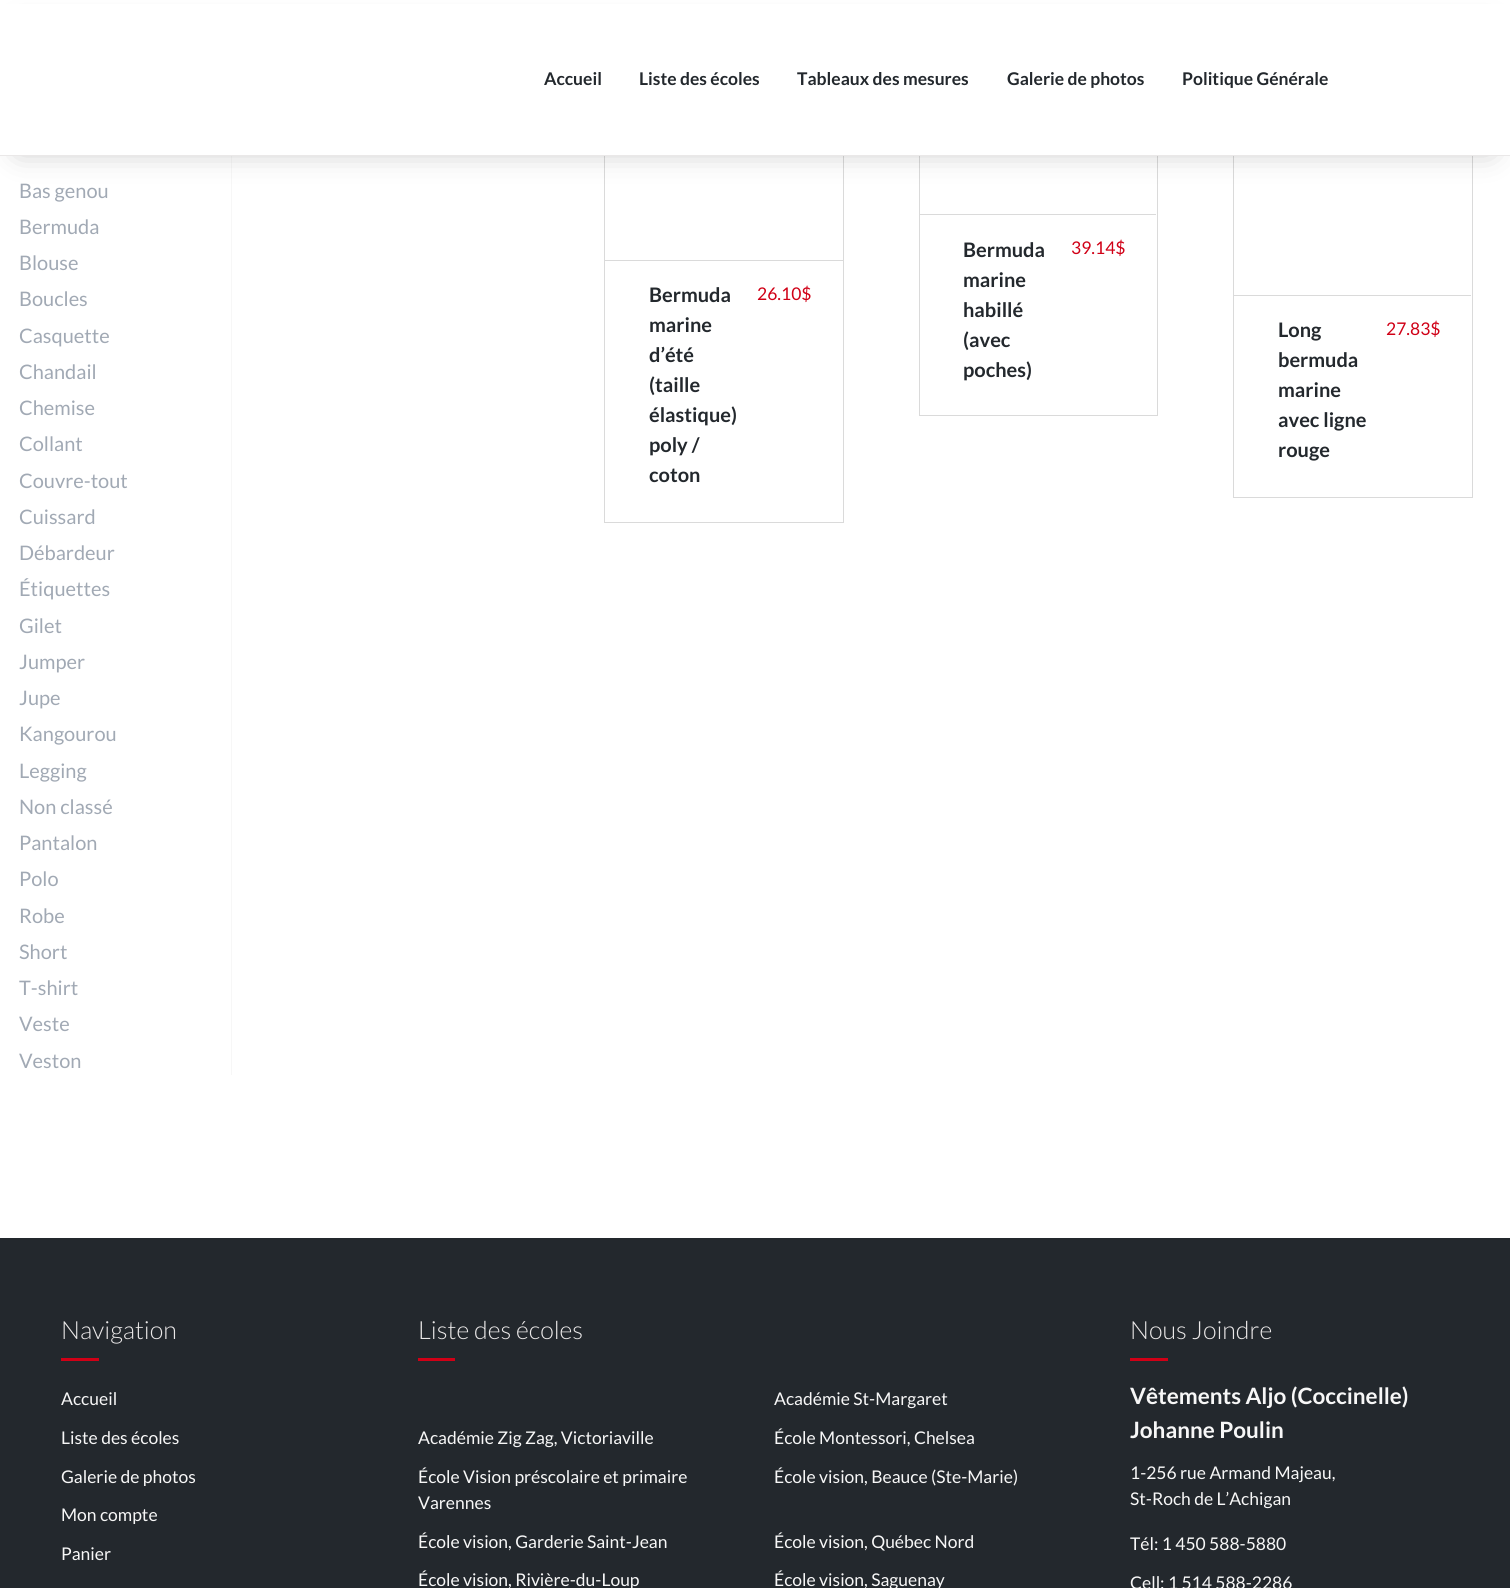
import math
import cairo


def use_color(cr, r, g, b):
  cr.set_source_rgb(r / 255, g / 255, b / 255)

def text(cr, x, y, s, family, size, color, bold=False, italic=False):
  cr.select_font_face(family, cairo.FONT_SLANT_ITALIC if italic else cairo.FONT_SLANT_NORMAL, cairo.FONT_WEIGHT_BOLD if bold else cairo.FONT_WEIGHT_NORMAL)
  cr.set_font_size(size)
  use_color(cr, *color)
  cr.move_to(x, y)
  cr.show_text(s)

def box(cr, x, y, w, h, *color):
  use_color(cr, *color)
  cr.rectangle(x, y, w, h)
  cr.fill()

def round_rect(cr, x, y, w, h, r):
  cr.new_sub_path()
  for i, (u, v) in enumerate([(x + w - r, y + h - r), (x + r, y + h - r), (x + r, y + r), (x + w - r, y + r)]):
    cr.arc(u, v, r, i * math.pi / 2, (i + 1) * math.pi / 2)
  cr.close_path()

def shadow(cr, x, y, w, h, r, blur, alpha):
  cr.push_group_with_content(cairo.CONTENT_ALPHA)
  cr.set_operator(cairo.OPERATOR_SOURCE)
  for i in range(15, -16, -2):
    e = blur * i / 6
    if min(w, h) + 2 * e > 0:
      cr.set_source_rgba(0, 0, 0, alpha * math.erfc((i - 1) / 8.5) / 2)
      round_rect(cr, x - e, y - e, w + 2 * e, h + 2 * e, max(0, min(r + e + blur * .6, min(w, h) / 2 + e)))
      cr.fill()
  cr.mask(cr.pop_group())

def draw(cr):
  use_color(cr, 255, 255, 255)
  cr.paint()
  box(cr, 231, 156, 1, 919, 247, 247, 247)
  cr.rectangle(604.5, 38.5, 239, 484)
  use_color(cr, 218, 218, 218)
  cr.set_line_width(1)
  cr.stroke()
  cr.rectangle(919.5, 38.5, 238, 377)
  cr.stroke()
  cr.rectangle(1233.5, 38.5, 239, 459)
  cr.stroke()
  use_color(cr, 0, 0, 0)
  shadow(cr, 19, 31, 1472, 119, 0, 15.5, 0.25)
  box(cr, 0, 4, 1510, 151, 255, 255, 255)
  box(cr, 0, 155, 1510, 1, 234, 232, 232)
  box(cr, 605, 260, 238, 1, 218, 218, 218)
  box(cr, 920, 214, 236, 1, 218, 218, 218)
  box(cr, 1234, 295, 237, 1, 218, 218, 218)
  box(cr, 0, 1238, 1510, 350, 35, 40, 45)
  box(cr, 61, 1358, 38, 3, 208, 0, 22)
  box(cr, 418, 1358, 37, 3, 208, 0, 22)
  box(cr, 1130, 1358, 38, 3, 208, 0, 22)
  text(cr, 544, 85, "Accueil", "Lato", 17.5, (35, 40, 45), bold=True)
  text(cr, 639, 85, "Liste des écoles", "Lato", 17.5, (35, 40, 45), bold=True)
  text(cr, 797, 85, "Tableaux des mesures", "Lato", 17.5, (35, 40, 45), bold=True)
  text(cr, 1007, 85, "Galerie de photos", "Lato", 17.5, (35, 40, 45), bold=True)
  text(cr, 1182, 85, "Politique Générale", "Lato", 17.5, (35, 40, 45), bold=True)
  text(cr, 19, 198, "Bas genou", "Lato", 20, (161, 169, 180))
  text(cr, 19, 234, "Bermuda", "Lato", 20, (161, 169, 180))
  text(cr, 19, 270, "Blouse", "Lato", 20, (161, 169, 180))
  text(cr, 19, 306, "Boucles", "Lato", 20, (161, 169, 180))
  text(cr, 19, 343, "Casquette", "Lato", 20, (161, 169, 180))
  text(cr, 19, 379, "Chandail", "Lato", 20, (161, 169, 180))
  text(cr, 19, 415, "Chemise", "Lato", 20, (161, 169, 180))
  text(cr, 19, 451, "Collant", "Lato", 20, (161, 169, 180))
  text(cr, 19, 488, "Couvre-tout", "Lato", 20, (161, 169, 180))
  text(cr, 19, 524, "Cuissard", "Lato", 20, (161, 169, 180))
  text(cr, 19, 560, "Débardeur", "Lato", 20, (161, 169, 180))
  text(cr, 19, 596, "Étiquettes", "Lato", 20, (161, 169, 180))
  text(cr, 19, 633, "Gilet", "Lato", 20, (161, 169, 180))
  text(cr, 19, 669, "Jumper", "Lato", 20, (161, 169, 180))
  text(cr, 19, 705, "Jupe", "Lato", 20, (161, 169, 180))
  text(cr, 19, 741, "Kangourou", "Lato", 20, (161, 169, 180))
  text(cr, 19, 778, "Legging", "Lato", 20, (161, 169, 180))
  text(cr, 19, 814, "Non classé", "Lato", 20, (161, 169, 180))
  text(cr, 19, 850, "Pantalon", "Lato", 20, (161, 169, 180))
  text(cr, 19, 886, "Polo", "Lato", 20, (161, 169, 180))
  text(cr, 19, 923, "Robe", "Lato", 20, (161, 169, 180))
  text(cr, 19, 959, "Short", "Lato", 20, (161, 169, 180))
  text(cr, 19, 995, "T-shirt", "Lato", 20, (161, 169, 180))
  text(cr, 19, 1031, "Veste", "Lato", 20, (161, 169, 180))
  text(cr, 19, 1068, "Veston", "Lato", 20, (161, 169, 180))
  text(cr, 649, 302, "Bermuda", "Lato", 20, (35, 40, 45), bold=True)
  text(cr, 649, 332, "marine", "Lato", 20, (35, 40, 45), bold=True)
  text(cr, 649, 362, "d’été", "Lato", 20, (35, 40, 45), bold=True)
  text(cr, 649, 392, "(taille", "Lato", 20, (35, 40, 45), bold=True)
  text(cr, 649, 422, "élastique)", "Lato", 20, (35, 40, 45), bold=True)
  text(cr, 649, 452, "poly /", "Lato", 20, (35, 40, 45), bold=True)
  text(cr, 649, 482, "coton", "Lato", 20, (35, 40, 45), bold=True)
  text(cr, 757, 300, "26.10$", "Lato", 17.5, (208, 0, 22))
  text(cr, 963, 257, "Bermuda", "Lato", 20, (35, 40, 45), bold=True)
  text(cr, 963, 287, "marine", "Lato", 20, (35, 40, 45), bold=True)
  text(cr, 963, 317, "habillé", "Lato", 20, (35, 40, 45), bold=True)
  text(cr, 963, 347, "(avec", "Lato", 20, (35, 40, 45), bold=True)
  text(cr, 963, 377, "poches)", "Lato", 20, (35, 40, 45), bold=True)
  text(cr, 1071, 254, "39.14$", "Lato", 17.5, (208, 0, 22))
  text(cr, 1278, 337, "Long", "Lato", 20, (35, 40, 45), bold=True)
  text(cr, 1278, 367, "bermuda", "Lato", 20, (35, 40, 45), bold=True)
  text(cr, 1278, 397, "marine", "Lato", 20, (35, 40, 45), bold=True)
  text(cr, 1278, 427, "avec ligne", "Lato", 20, (35, 40, 45), bold=True)
  text(cr, 1278, 457, "rouge", "Lato", 20, (35, 40, 45), bold=True)
  text(cr, 1386, 335, "27.83$", "Lato", 17.5, (208, 0, 22))
  text(cr, 61, 1339, "Navigation", "Lato Light", 25, (234, 232, 232))
  text(cr, 61, 1405, "Accueil", "Lato", 17.5, (247, 247, 247))
  text(cr, 61, 1444, "Liste des écoles", "Lato", 17.5, (247, 247, 247))
  text(cr, 61, 1483, "Galerie de photos", "Lato", 17.5, (247, 247, 247))
  text(cr, 61, 1521, "Mon compte", "Lato", 17.5, (247, 247, 247))
  text(cr, 61, 1560, "Panier", "Lato", 17.5, (247, 247, 247))
  text(cr, 418, 1339, "Liste des écoles", "Lato Light", 25, (234, 232, 232))
  text(cr, 774, 1405, "Académie St-Margaret", "Lato", 17.5, (247, 247, 247))
  text(cr, 418, 1444, "Académie Zig Zag, Victoriaville", "Lato", 17.5, (247, 247, 247))
  text(cr, 774, 1444, "École Montessori, Chelsea", "Lato", 17.5, (247, 247, 247))
  text(cr, 418, 1483, "École Vision préscolaire et primaire", "Lato", 17.5, (247, 247, 247))
  text(cr, 418, 1509, "Varennes", "Lato", 17.5, (247, 247, 247))
  text(cr, 774, 1483, "École vision, Beauce (Ste-Marie)", "Lato", 17.5, (247, 247, 247))
  text(cr, 418, 1548, "École vision, Garderie Saint-Jean", "Lato", 17.5, (247, 247, 247))
  text(cr, 774, 1548, "École vision, Québec Nord", "Lato", 17.5, (247, 247, 247))
  text(cr, 418, 1586, "École vision, Rivière-du-Loup", "Lato", 17.5, (247, 247, 247))
  text(cr, 774, 1586, "École vision, Saguenay", "Lato", 17.5, (247, 247, 247))
  text(cr, 1130, 1339, "Nous Joindre", "Lato Light", 25, (234, 232, 232))
  text(cr, 1130, 1404, "Vêtements Aljo (Coccinelle)", "Lato", 22.5, (247, 247, 247), bold=True)
  text(cr, 1130, 1438, "Johanne Poulin", "Lato", 22.5, (247, 247, 247), bold=True)
  text(cr, 1130, 1479, "1-256 rue Armand Majeau,", "Lato", 17.5, (247, 247, 247))
  text(cr, 1130, 1505, "St-Roch de L’Achigan", "Lato", 17.5, (247, 247, 247))
  text(cr, 1130, 1550, "Tél: 1 450 588-5880", "Lato", 17.5, (247, 247, 247))
  text(cr, 1130, 1589, "Cell: 1 514 588-2286", "Lato", 17.5, (247, 247, 247))


surface = cairo.ImageSurface(cairo.FORMAT_RGB24, 1510, 1588)
cr = cairo.Context(surface)
options = cairo.FontOptions()
options.set_hint_metrics(cairo.HINT_METRICS_OFF)
options.set_hint_style(cairo.HINT_STYLE_NONE)
cr.set_font_options(options)
cr.set_miter_limit(4)
draw(cr)
surface.write_to_png("out.png")
